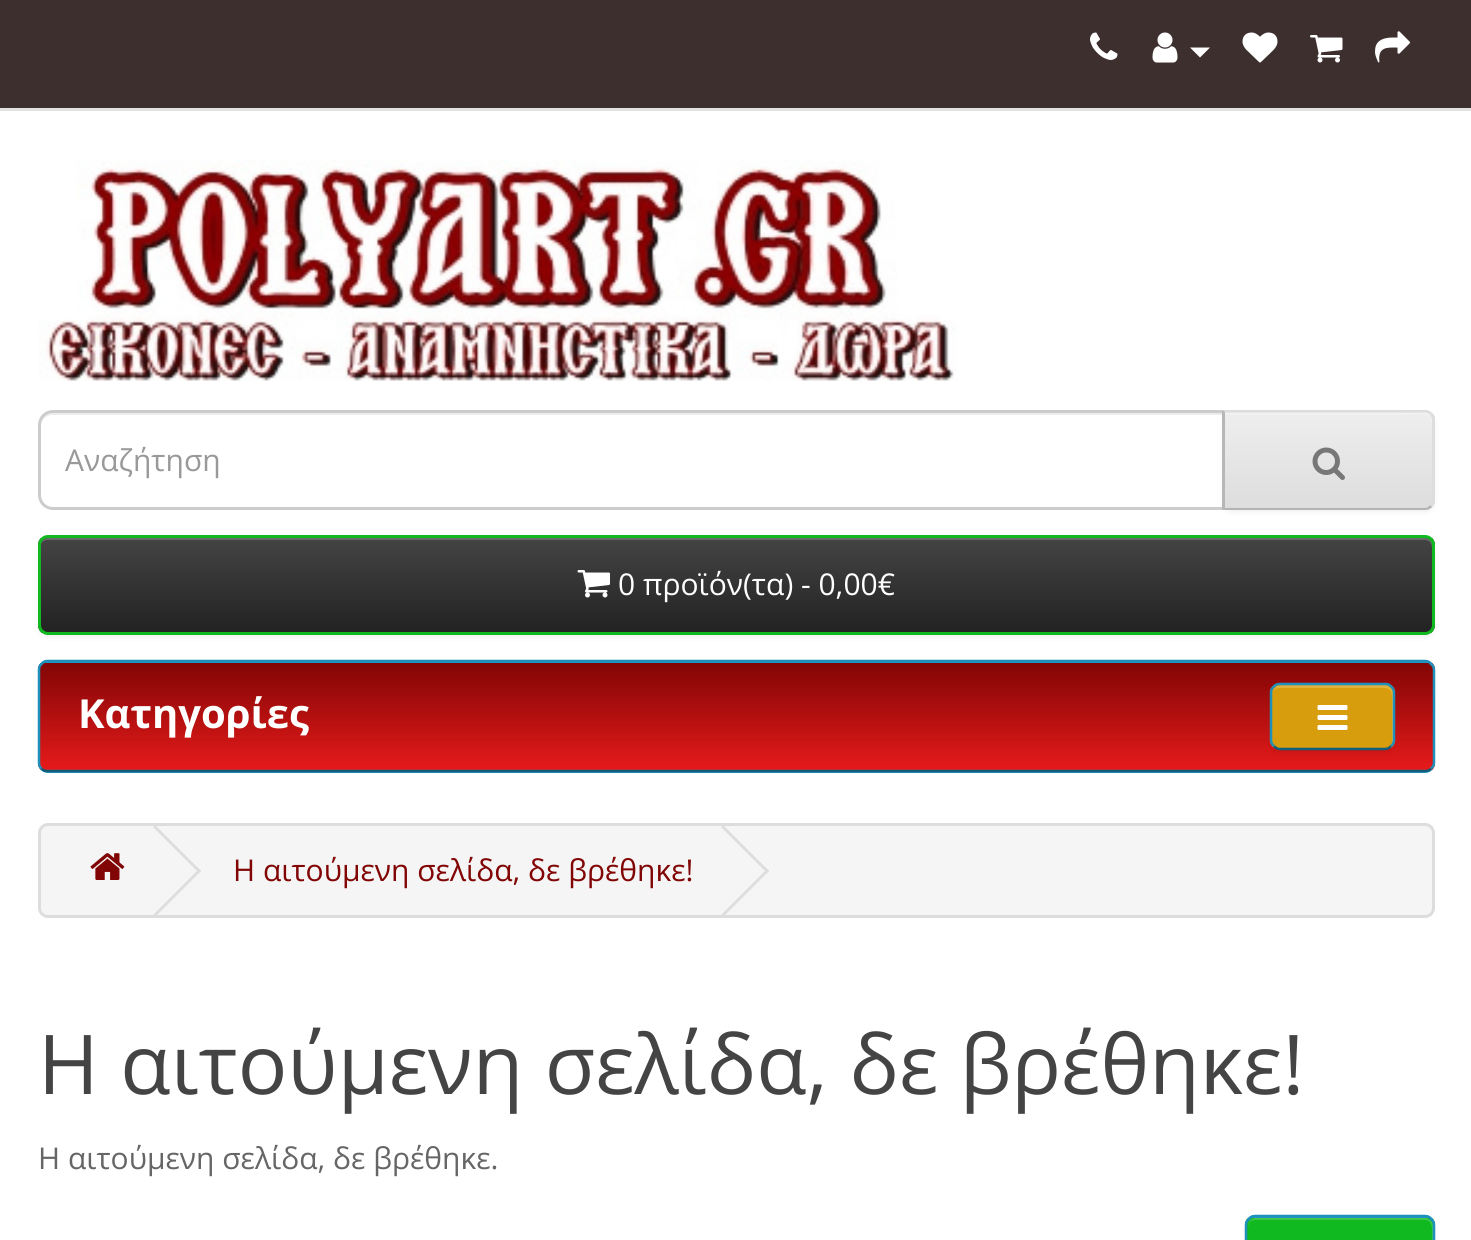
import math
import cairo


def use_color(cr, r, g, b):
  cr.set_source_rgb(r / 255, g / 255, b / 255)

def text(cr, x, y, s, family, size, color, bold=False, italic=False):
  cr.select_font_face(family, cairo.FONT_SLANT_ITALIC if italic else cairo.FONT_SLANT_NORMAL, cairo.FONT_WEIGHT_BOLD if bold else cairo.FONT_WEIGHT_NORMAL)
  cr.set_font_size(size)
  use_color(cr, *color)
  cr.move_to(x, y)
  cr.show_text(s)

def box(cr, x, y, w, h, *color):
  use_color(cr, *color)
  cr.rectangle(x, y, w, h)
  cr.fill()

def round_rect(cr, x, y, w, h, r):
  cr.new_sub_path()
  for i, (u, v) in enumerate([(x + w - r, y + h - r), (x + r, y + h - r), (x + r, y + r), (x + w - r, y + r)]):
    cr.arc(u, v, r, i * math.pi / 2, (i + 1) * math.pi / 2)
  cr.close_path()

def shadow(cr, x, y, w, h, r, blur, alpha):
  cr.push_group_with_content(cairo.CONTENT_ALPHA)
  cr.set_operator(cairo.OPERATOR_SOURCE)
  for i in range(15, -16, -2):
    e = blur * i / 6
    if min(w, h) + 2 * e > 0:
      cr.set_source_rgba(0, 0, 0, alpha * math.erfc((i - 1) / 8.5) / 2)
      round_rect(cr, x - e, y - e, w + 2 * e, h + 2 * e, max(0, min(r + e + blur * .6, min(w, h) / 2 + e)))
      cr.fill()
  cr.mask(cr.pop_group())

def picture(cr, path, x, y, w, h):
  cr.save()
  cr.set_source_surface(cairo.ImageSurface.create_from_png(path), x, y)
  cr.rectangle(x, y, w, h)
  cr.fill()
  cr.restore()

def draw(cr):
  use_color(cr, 255, 255, 255)
  cr.paint()
  box(cr, 0, 0, 1471, 108, 62, 47, 47)
  box(cr, 0, 108, 1471, 3, 226, 226, 226)
  picture(cr, "img_01.png", 1090, 32, 28, 28)
  picture(cr, "img_02.png", 1152, 32, 26, 31)
  use_color(cr, 255, 255, 255)
  cr.new_path()
  cr.move_to(1190, 47.5)
  cr.line_to(1210, 47.5)
  cr.line_to(1200, 57.5)
  cr.close_path()
  cr.fill()
  picture(cr, "img_03.png", 1242, 32, 36, 31)
  picture(cr, "img_04.png", 1310, 35, 33, 28)
  picture(cr, "img_05.png", 1375, 31, 35, 32)
  picture(cr, "img_06.png", 38, 160, 919, 221)
  use_color(cr, 236, 236, 236)
  cr.new_path()
  cr.move_to(52, 415)
  cr.line_to(1222, 415)
  cr.line_to(1222, 508)
  cr.line_to(1223, 508)
  cr.line_to(1223, 413)
  cr.line_to(53, 413)
  cr.curve_to(44, 413, 40, 420, 40, 428)
  cr.curve_to(40, 421, 46, 415, 52, 415)
  cr.close_path()
  cr.fill()
  cr.new_path()
  cr.move_to(53, 411.5)
  cr.line_to(1223.5, 411.5)
  cr.line_to(1223.5, 508.5)
  cr.line_to(53, 508.5)
  cr.curve_to(45.5, 508.5, 39.5, 502.5, 39.5, 495)
  cr.line_to(39.5, 425)
  cr.curve_to(39.5, 417.5, 45.5, 411.5, 53, 411.5)
  cr.close_path()
  use_color(cr, 204, 204, 204)
  cr.set_line_width(3)
  cr.stroke()
  use_color(cr, 0, 0, 0)
  shadow(cr, 1223, 413, 212, 100, 10, 2.5, 0.05)
  use_color(cr, 231, 231, 231)
  cr.new_path()
  cr.move_to(1223, 410)
  cr.line_to(1425, 410)
  cr.curve_to(1430.5, 410, 1435, 414.5, 1435, 420)
  cr.line_to(1435, 500)
  cr.curve_to(1435, 505.5, 1430.5, 510, 1425, 510)
  cr.line_to(1223, 510)
  cr.close_path()
  cr.fill()
  cr.save()
  cr.new_path()
  cr.move_to(1223, 410)
  cr.line_to(1425, 410)
  cr.curve_to(1430.5, 410, 1435, 414.5, 1435, 420)
  cr.line_to(1435, 500)
  cr.curve_to(1435, 505.5, 1430.5, 510, 1425, 510)
  cr.line_to(1223, 510)
  cr.close_path()
  cr.clip()
  gradient = cairo.LinearGradient(1329, 413, 1329, 508)
  gradient.add_color_stop_rgba(0, 0.933, 0.933, 0.933, 1)
  gradient.add_color_stop_rgba(1, 0.867, 0.867, 0.867, 1)
  cr.set_source(gradient)
  cr.rectangle(1225, 413, 210, 95)
  cr.fill()
  cr.restore()
  cr.set_source_rgba(1, 1, 1, 0.2)
  cr.new_path()
  cr.move_to(1225, 415)
  cr.line_to(1392, 415)
  cr.curve_to(1438, 415, 1432, 407, 1432, 449)
  cr.line_to(1432, 504)
  cr.curve_to(1433, 503, 1433, 502, 1433, 500)
  cr.line_to(1433, 421)
  cr.curve_to(1433, 417, 1429, 413, 1425, 413)
  cr.line_to(1225, 413)
  cr.close_path()
  cr.fill()
  use_color(cr, 221, 221, 221)
  cr.new_path()
  cr.move_to(1225, 412)
  cr.line_to(1425, 412)
  cr.curve_to(1427, 412, 1429, 413, 1430, 415)
  cr.line_to(1432, 413)
  cr.curve_to(1430, 411, 1428, 410, 1425, 410)
  cr.line_to(1222, 410)
  cr.close_path()
  cr.fill()
  cr.new_path()
  cr.move_to(1435, 500)
  cr.line_to(1435, 420)
  cr.curve_to(1435, 417, 1434, 414, 1432, 413)
  cr.line_to(1430, 415)
  cr.curve_to(1431, 416, 1432, 418, 1432, 420)
  cr.line_to(1432, 500)
  cr.curve_to(1432, 502, 1431, 504, 1430, 505)
  cr.line_to(1432, 507)
  cr.curve_to(1434, 506, 1435, 503, 1435, 500)
  cr.close_path()
  cr.fill()
  use_color(cr, 179, 179, 179)
  cr.new_path()
  cr.move_to(1222, 510)
  cr.line_to(1425, 510)
  cr.curve_to(1428, 510, 1430, 509, 1432, 507)
  cr.line_to(1430, 505)
  cr.curve_to(1429, 507, 1427, 508, 1425, 508)
  cr.line_to(1225, 508)
  cr.close_path()
  cr.fill()
  use_color(cr, 183, 183, 183)
  cr.new_path()
  cr.move_to(1222, 510)
  cr.line_to(1225, 508)
  cr.line_to(1225, 412)
  cr.line_to(1222, 410)
  cr.close_path()
  cr.fill()
  picture(cr, "img_07.png", 1312, 447, 33, 33)
  use_color(cr, 0, 0, 0)
  shadow(cr, 38, 538, 1397, 100, 10, 2.5, 0.05)
  cr.save()
  round_rect(cr, 38, 535, 1397, 100, 10)
  cr.clip()
  gradient = cairo.LinearGradient(736, 537, 736, 633)
  gradient.add_color_stop_rgba(0, 0.267, 0.267, 0.267, 1)
  gradient.add_color_stop_rgba(1, 0.133, 0.133, 0.133, 1)
  cr.set_source(gradient)
  cr.rectangle(38, 538, 1397, 95)
  cr.fill()
  cr.restore()
  cr.set_source_rgba(1, 1, 1, 0.2)
  cr.new_path()
  cr.move_to(48, 540)
  cr.line_to(1425, 540)
  cr.curve_to(1429, 540, 1432, 543, 1432, 548)
  cr.line_to(1432, 629)
  cr.curve_to(1433, 628, 1433, 626, 1433, 625)
  cr.line_to(1433, 546)
  cr.curve_to(1433, 542, 1429, 538, 1425, 538)
  cr.line_to(48, 538)
  cr.curve_to(44, 538, 40, 542, 40, 546)
  cr.line_to(40, 548)
  cr.curve_to(40, 543, 43, 540, 48, 540)
  cr.close_path()
  cr.fill()
  round_rect(cr, 39.5, 536.5, 1394, 97, 8.5)
  use_color(cr, 15, 185, 31)
  cr.stroke()
  picture(cr, "img_08.png", 577, 570, 33, 28)
  use_color(cr, 34, 154, 200)
  round_rect(cr, 38, 660, 1397, 113, 10)
  cr.fill()
  cr.save()
  round_rect(cr, 38, 660, 1397, 113, 10)
  cr.clip()
  gradient = cairo.LinearGradient(736, 662, 736, 770)
  gradient.add_color_stop_rgba(0, 0.506, 0.02, 0.02, 1)
  gradient.add_color_stop_rgba(1, 0.902, 0.102, 0.102, 1)
  cr.set_source(gradient)
  cr.rectangle(38, 663, 1397, 107)
  cr.fill()
  cr.restore()
  cr.new_path()
  cr.move_to(1431, 768.5)
  cr.curve_to(1429.5, 770.5, 1427.5, 771, 1425, 771)
  cr.line_to(47.5, 771)
  cr.curve_to(45, 771, 43, 770.5, 41.5, 768.5)
  use_color(cr, 20, 94, 122)
  cr.set_line_width(2.5)
  cr.stroke()
  cr.new_path()
  cr.move_to(41.5, 768.5)
  cr.curve_to(39.5, 767, 39, 765, 39, 762.5)
  cr.line_to(39, 670)
  cr.curve_to(39, 667.5, 39.5, 665.5, 41.5, 664)
  cr.curve_to(43, 662, 45, 661, 47.5, 661)
  cr.line_to(1425, 661)
  cr.curve_to(1427.5, 661, 1429.5, 662, 1431, 664)
  cr.curve_to(1433, 665.5, 1434, 667.5, 1434, 670)
  cr.line_to(1434, 762.5)
  cr.curve_to(1434, 765, 1433, 767, 1431, 768.5)
  use_color(cr, 31, 144, 187)
  cr.stroke()
  use_color(cr, 0, 0, 0)
  shadow(cr, 1270, 685, 125, 68, 10, 2.5, 0.05)
  cr.save()
  round_rect(cr, 1270, 683, 125, 67, 10)
  cr.clip()
  box(cr, 1270, 685, 125, 63, 215, 157, 13)
  cr.restore()
  use_color(cr, 223, 177, 61)
  cr.new_path()
  cr.move_to(1280, 688)
  cr.line_to(1368, 688)
  cr.curve_to(1394, 688, 1392, 685, 1392, 711)
  cr.line_to(1392, 744)
  cr.curve_to(1393, 743, 1393, 742, 1393, 740)
  cr.line_to(1393, 693)
  cr.curve_to(1393, 689, 1389, 685, 1385, 685)
  cr.line_to(1281, 685)
  cr.curve_to(1277, 685, 1274, 688, 1273, 691)
  cr.curve_to(1275, 689, 1277, 688, 1280, 688)
  cr.close_path()
  cr.fill()
  cr.new_path()
  cr.move_to(1391, 746)
  cr.curve_to(1389.5, 748, 1387.5, 749, 1385, 749)
  cr.line_to(1280, 749)
  cr.curve_to(1277.5, 749, 1275.5, 748, 1274, 746)
  use_color(cr, 20, 94, 122)
  cr.stroke()
  cr.new_path()
  cr.move_to(1274, 746)
  cr.curve_to(1272, 744.5, 1271, 742.5, 1271, 740)
  cr.line_to(1271, 692.5)
  cr.curve_to(1271, 690, 1272, 688, 1274, 686.5)
  cr.curve_to(1275.5, 684.5, 1277.5, 684, 1280, 684)
  cr.line_to(1385, 684)
  cr.curve_to(1387.5, 684, 1389.5, 684.5, 1391, 686.5)
  cr.curve_to(1393, 688, 1394, 690, 1394, 692.5)
  cr.line_to(1394, 740)
  cr.curve_to(1394, 742.5, 1393, 744.5, 1391, 746)
  use_color(cr, 31, 144, 187)
  cr.stroke()
  picture(cr, "img_09.png", 1317, 705, 31, 25)
  use_color(cr, 245, 245, 245)
  round_rect(cr, 39.5, 824.5, 1394, 92, 8.5)
  cr.fill_preserve()
  use_color(cr, 221, 221, 221)
  cr.set_line_width(3)
  cr.stroke()
  picture(cr, "img_10.png", 90, 853, 35, 27)
  cr.new_path()
  cr.move_to(153, 827)
  cr.line_to(155, 825)
  cr.line_to(201, 871)
  cr.line_to(199, 873)
  cr.close_path()
  cr.fill()
  cr.new_path()
  cr.move_to(153, 915)
  cr.line_to(199, 869)
  cr.line_to(201, 871)
  cr.line_to(155, 917)
  cr.close_path()
  cr.fill()
  cr.new_path()
  cr.move_to(721, 827)
  cr.line_to(723, 825)
  cr.line_to(769, 871)
  cr.line_to(767, 873)
  cr.close_path()
  cr.fill()
  cr.new_path()
  cr.move_to(721, 915)
  cr.line_to(767, 869)
  cr.line_to(769, 871)
  cr.line_to(723, 917)
  cr.close_path()
  cr.fill()
  use_color(cr, 0, 0, 0)
  shadow(cr, 1245, 1218, 190, 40, 10, 2.5, 0.05)
  use_color(cr, 34, 154, 200)
  round_rect(cr, 1245, 1215, 190, 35, 10)
  cr.fill()
  cr.save()
  round_rect(cr, 1245, 1215, 190, 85, 10)
  cr.clip()
  box(cr, 1245, 1218, 190, 22, 15, 185, 31)
  cr.restore()
  use_color(cr, 63, 199, 76)
  cr.new_path()
  cr.move_to(1255, 1220)
  cr.line_to(1425, 1220)
  cr.curve_to(1434, 1220, 1432, 1233, 1432, 1239)
  cr.line_to(1432, 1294)
  cr.curve_to(1433, 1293, 1433, 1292, 1433, 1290)
  cr.line_to(1433, 1226)
  cr.curve_to(1433, 1222, 1429, 1218, 1425, 1218)
  cr.line_to(1256, 1218)
  cr.curve_to(1252, 1218, 1248, 1222, 1248, 1226)
  cr.line_to(1248, 1228)
  cr.curve_to(1248, 1223, 1251, 1220, 1255, 1220)
  cr.close_path()
  cr.fill()
  cr.new_path()
  cr.move_to(1249, 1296)
  cr.curve_to(1247, 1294.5, 1246, 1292.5, 1246, 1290)
  cr.line_to(1246, 1225)
  cr.curve_to(1246, 1222.5, 1247, 1220.5, 1249, 1219)
  cr.curve_to(1250.5, 1217, 1252.5, 1216, 1255, 1216)
  cr.line_to(1425, 1216)
  cr.curve_to(1427.5, 1216, 1429.5, 1217, 1431, 1219)
  cr.curve_to(1433, 1220.5, 1434, 1222.5, 1434, 1225)
  cr.line_to(1434, 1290)
  cr.curve_to(1434, 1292.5, 1433, 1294.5, 1431, 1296)
  use_color(cr, 31, 144, 187)
  cr.set_line_width(2.5)
  cr.stroke()
  text(cr, 65, 471, "Αναζήτηση", "Open Sans", 30, (153, 153, 153))
  text(cr, 618, 595, "0 προϊόν(τα) - 0,00€", "Open Sans", 30, (255, 255, 255))
  text(cr, 78, 728, "Κατηγορίες", "Open Sans", 40, (255, 255, 255), bold=True)
  text(cr, 233, 881, "Η αιτούμενη σελίδα, δε βρέθηκε!", "Open Sans", 30, (129, 5, 5))
  text(cr, 38, 1094, "Η αιτούμενη σελίδα, δε βρέθηκε!", "Open Sans", 82.5, (68, 68, 68))
  text(cr, 38, 1169, "Η αιτούμενη σελίδα, δε βρέθηκε.", "Open Sans", 30, (102, 102, 102))


surface = cairo.ImageSurface(cairo.FORMAT_RGB24, 1471, 1240)
cr = cairo.Context(surface)
options = cairo.FontOptions()
options.set_hint_metrics(cairo.HINT_METRICS_OFF)
options.set_hint_style(cairo.HINT_STYLE_NONE)
cr.set_font_options(options)
cr.set_miter_limit(4)
draw(cr)
surface.write_to_png("out.png")
